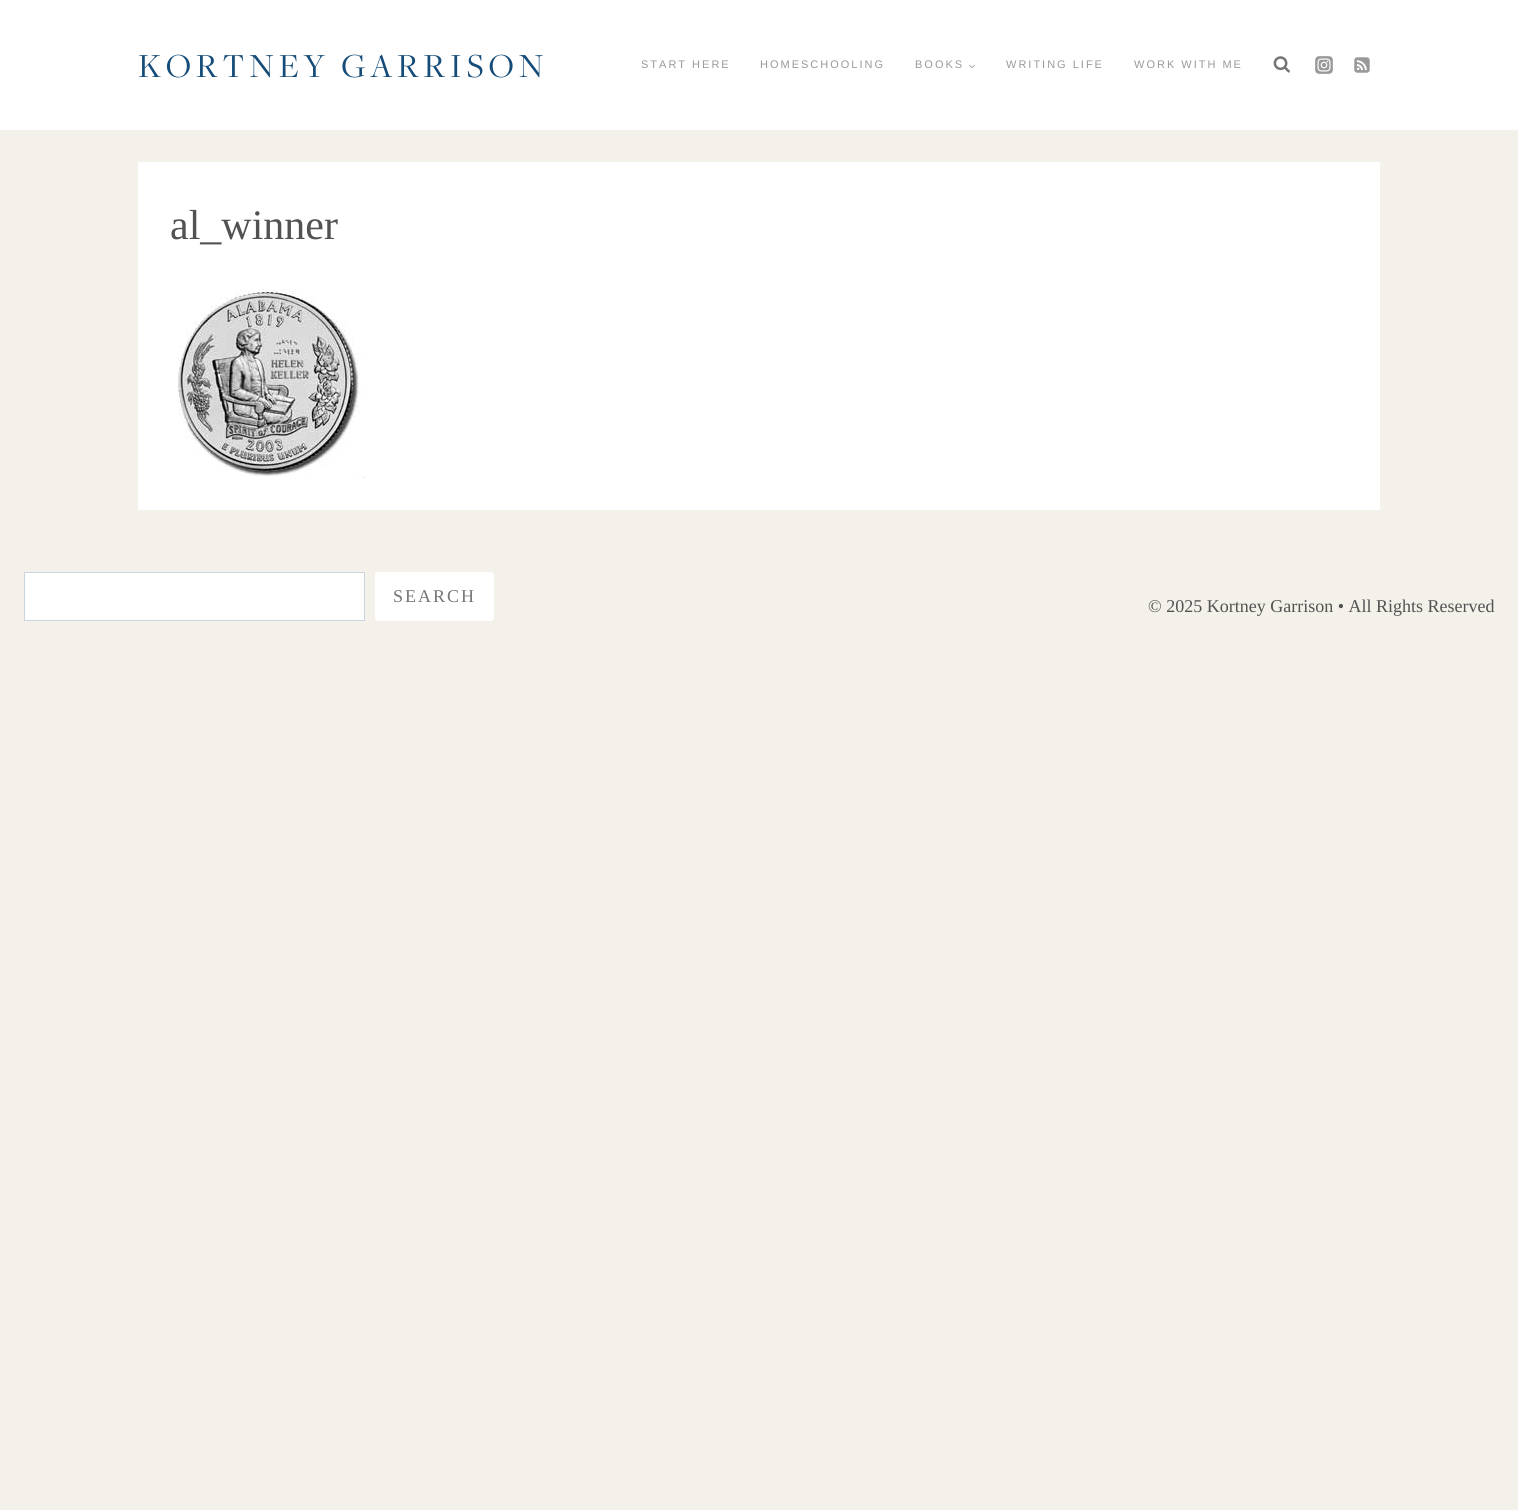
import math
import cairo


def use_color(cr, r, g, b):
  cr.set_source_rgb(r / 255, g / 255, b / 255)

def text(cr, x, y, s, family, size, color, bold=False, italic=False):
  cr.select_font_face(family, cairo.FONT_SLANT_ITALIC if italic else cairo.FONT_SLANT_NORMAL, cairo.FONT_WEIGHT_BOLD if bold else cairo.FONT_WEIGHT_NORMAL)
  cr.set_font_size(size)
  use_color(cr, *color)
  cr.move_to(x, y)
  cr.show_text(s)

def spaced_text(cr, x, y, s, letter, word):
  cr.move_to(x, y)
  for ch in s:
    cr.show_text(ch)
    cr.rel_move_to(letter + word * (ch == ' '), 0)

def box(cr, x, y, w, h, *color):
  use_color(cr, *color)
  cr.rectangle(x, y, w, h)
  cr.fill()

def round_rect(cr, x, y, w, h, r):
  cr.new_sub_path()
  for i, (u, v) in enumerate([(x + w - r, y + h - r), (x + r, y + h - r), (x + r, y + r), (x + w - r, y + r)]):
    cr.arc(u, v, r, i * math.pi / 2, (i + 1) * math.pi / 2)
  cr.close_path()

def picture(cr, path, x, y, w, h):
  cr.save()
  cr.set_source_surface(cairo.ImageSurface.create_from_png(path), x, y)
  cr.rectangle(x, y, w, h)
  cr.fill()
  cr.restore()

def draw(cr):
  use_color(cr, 244, 241, 234)
  cr.paint()
  box(cr, 0, 0, 1518, 130, 255, 255, 255)
  picture(cr, "img_01.png", 969, 64, 6, 4)
  picture(cr, "img_02.png", 1273, 56, 17, 17)
  picture(cr, "img_03.png", 1315, 56, 18, 18)
  picture(cr, "img_04.png", 1354, 57, 16, 16)
  box(cr, 138, 162, 1242, 348, 255, 255, 255)
  picture(cr, "img_05.png", 178, 289, 187, 189)
  cr.rectangle(24.5, 572.5, 340, 48)
  cr.fill_preserve()
  use_color(cr, 203, 213, 224)
  cr.set_line_width(1)
  cr.stroke()
  use_color(cr, 255, 255, 255)
  round_rect(cr, 375, 572, 119, 49, 3)
  cr.fill()
  cr.select_font_face("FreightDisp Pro")
  cr.set_font_size(35)
  use_color(cr, 21, 76, 121)
  spaced_text(cr, 138, 77, "KORTNEY GARRISON", 5, 0)
  cr.select_font_face("Liberation Sans")
  cr.set_font_size(11)
  use_color(cr, 153, 153, 153)
  spaced_text(cr, 641, 68, "START HERE", 2, 0)
  spaced_text(cr, 760, 68, "HOMESCHOOLING", 2, 0)
  spaced_text(cr, 915, 68, "BOOKS", 2, 0)
  spaced_text(cr, 1006, 68, "WRITING LIFE", 2, 0)
  spaced_text(cr, 1134, 68, "WORK WITH ME", 2, 0)
  text(cr, 170, 239, "al_winner", "Liberation Serif", 42, (82, 82, 82))
  cr.set_font_size(18)
  use_color(cr, 117, 117, 117)
  spaced_text(cr, 393, 602, "SEARCH", 2, 0)
  text(cr, 1148, 612, "© 2025 Kortney Garrison • All Rights Reserved", "Liberation Serif", 18, (82, 82, 82))


surface = cairo.ImageSurface(cairo.FORMAT_RGB24, 1518, 1510)
cr = cairo.Context(surface)
options = cairo.FontOptions()
options.set_hint_metrics(cairo.HINT_METRICS_OFF)
options.set_hint_style(cairo.HINT_STYLE_NONE)
cr.set_font_options(options)
cr.set_miter_limit(4)
draw(cr)
surface.write_to_png("out.png")
